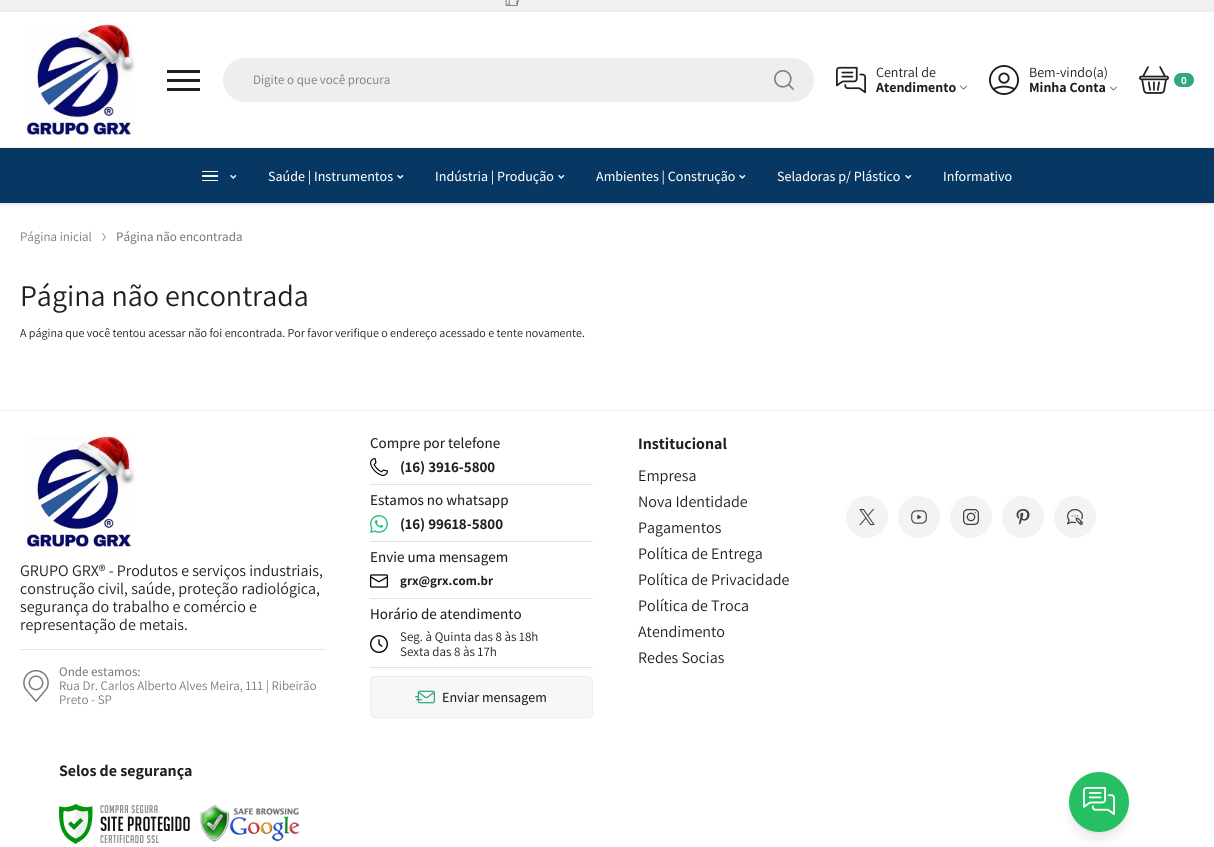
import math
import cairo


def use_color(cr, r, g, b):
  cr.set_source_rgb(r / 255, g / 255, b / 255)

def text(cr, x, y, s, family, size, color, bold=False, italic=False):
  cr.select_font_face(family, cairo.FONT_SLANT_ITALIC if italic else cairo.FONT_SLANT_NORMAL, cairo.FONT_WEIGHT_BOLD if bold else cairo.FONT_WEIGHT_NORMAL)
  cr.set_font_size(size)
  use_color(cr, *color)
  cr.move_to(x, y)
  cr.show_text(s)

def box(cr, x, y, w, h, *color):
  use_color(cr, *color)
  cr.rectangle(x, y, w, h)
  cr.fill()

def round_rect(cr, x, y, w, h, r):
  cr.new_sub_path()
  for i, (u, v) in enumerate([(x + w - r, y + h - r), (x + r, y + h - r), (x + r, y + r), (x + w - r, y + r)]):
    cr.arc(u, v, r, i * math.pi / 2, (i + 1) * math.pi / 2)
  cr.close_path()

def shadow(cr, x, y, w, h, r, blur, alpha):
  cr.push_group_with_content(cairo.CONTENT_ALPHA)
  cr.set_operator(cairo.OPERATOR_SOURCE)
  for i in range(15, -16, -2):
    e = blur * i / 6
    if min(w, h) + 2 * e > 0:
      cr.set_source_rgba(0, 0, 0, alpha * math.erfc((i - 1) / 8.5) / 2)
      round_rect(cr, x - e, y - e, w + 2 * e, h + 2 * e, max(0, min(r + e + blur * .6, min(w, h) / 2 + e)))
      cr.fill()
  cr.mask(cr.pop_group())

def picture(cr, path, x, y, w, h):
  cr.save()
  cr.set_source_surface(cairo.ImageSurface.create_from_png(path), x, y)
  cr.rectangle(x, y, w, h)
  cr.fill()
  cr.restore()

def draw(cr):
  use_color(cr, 255, 255, 255)
  cr.paint()
  box(cr, 0, 0, 1214, 12, 241, 241, 241)
  picture(cr, "img_01.png", 505, 0, 14, 6)
  use_color(cr, 82, 82, 82)
  shadow(cr, 0, 149, 1214, 55, 0, 2, 0.2)
  box(cr, 0, 148, 1214, 55, 7, 55, 99)
  use_color(cr, 82, 82, 82)
  shadow(cr, 0, 13, 1214, 136, 0, 2, 0.13)
  box(cr, 0, 12, 1214, 135, 255, 255, 255)
  box(cr, 0, 147, 1214, 1, 241, 241, 241)
  picture(cr, "img_02.png", 26, 24, 109, 111)
  box(cr, 167, 88, 33, 3, 32, 31, 31)
  box(cr, 167, 70, 33, 3, 32, 31, 31)
  box(cr, 167, 79, 33, 3, 32, 31, 31)
  use_color(cr, 238, 238, 238)
  round_rect(cr, 223, 58, 591, 44, 22)
  cr.fill()
  picture(cr, "img_03.png", 774, 70, 20, 20)
  picture(cr, "img_04.png", 836, 66, 30, 28)
  picture(cr, "img_05.png", 960, 85, 7, 5)
  picture(cr, "img_06.png", 989, 65, 30, 30)
  picture(cr, "img_05.png", 1110, 86, 7, 5)
  picture(cr, "img_07.png", 1139, 66, 30, 28)
  use_color(cr, 48, 167, 126)
  round_rect(cr, 1174, 73, 20, 14, 7)
  cr.fill()
  box(cr, 202, 180, 16, 1, 242, 246, 250)
  box(cr, 202, 175, 16, 2, 242, 246, 250)
  box(cr, 202, 171, 16, 1, 242, 246, 250)
  picture(cr, "img_08.png", 230, 175, 7, 4)
  picture(cr, "img_09.png", 397, 175, 7, 4)
  picture(cr, "img_09.png", 558, 175, 7, 4)
  picture(cr, "img_09.png", 739, 175, 7, 4)
  picture(cr, "img_09.png", 905, 175, 7, 4)
  picture(cr, "img_10.png", 102, 233, 4, 8)
  box(cr, 0, 410, 1214, 1, 239, 239, 239)
  box(cr, 370, 484, 223, 1, 226, 226, 226)
  picture(cr, "img_11.png", 370, 458, 18, 18)
  box(cr, 370, 541, 223, 1, 226, 226, 226)
  picture(cr, "img_12.png", 370, 515, 18, 18)
  box(cr, 370, 598, 223, 1, 226, 226, 226)
  picture(cr, "img_13.png", 370, 574, 18, 14)
  box(cr, 370, 667, 223, 1, 226, 226, 226)
  picture(cr, "img_14.png", 370, 635, 18, 18)
  use_color(cr, 247, 247, 247)
  round_rect(cr, 370.5, 676.5, 222, 41, 4.5)
  cr.fill_preserve()
  use_color(cr, 237, 237, 237)
  cr.set_line_width(1)
  cr.stroke()
  picture(cr, "img_15.png", 415, 690, 20, 14)
  use_color(cr, 243, 243, 243)
  cr.arc(867, 517, 21, 0, 2 * math.pi)
  cr.fill()
  picture(cr, "img_16.png", 859, 509, 16, 16)
  cr.arc(919, 517, 21, 0, 2 * math.pi)
  cr.fill()
  picture(cr, "img_17.png", 911, 510, 16, 14)
  cr.arc(971, 517, 21, 0, 2 * math.pi)
  cr.fill()
  picture(cr, "img_18.png", 963, 509, 16, 16)
  cr.arc(1023, 517, 21, 0, 2 * math.pi)
  cr.fill()
  picture(cr, "img_19.png", 1016, 509, 14, 16)
  cr.arc(1075, 517, 21, 0, 2 * math.pi)
  cr.fill()
  picture(cr, "img_20.png", 1067, 509, 16, 16)
  picture(cr, "img_21.png", 26, 436, 109, 111)
  box(cr, 20, 649, 305, 1, 226, 226, 226)
  picture(cr, "img_22.png", 23, 670, 26, 32)
  picture(cr, "img_23.png", 59, 804, 131, 40)
  picture(cr, "img_24.png", 200, 805, 100, 37)
  use_color(cr, 103, 103, 103)
  shadow(cr, 1069, 782, 60, 60, 30, 4, 0.1)
  use_color(cr, 0, 0, 0)
  shadow(cr, 1069, 774, 60, 60, 30, 0.5, 0.04)
  use_color(cr, 39, 191, 100)
  cr.arc(1099, 802, 30, 0, 2 * math.pi)
  cr.fill()
  picture(cr, "img_25.png", 1083, 787, 32, 28)
  text(cr, 253, 84, "Digite o que você procura", "Assistant", 13, (123, 123, 123))
  text(cr, 876, 77, "Central de", "Assistant", 14, (32, 31, 31))
  text(cr, 876, 92, "Atendimento", "Assistant", 14, (32, 31, 31), bold=True)
  text(cr, 1029, 77, "Bem-vindo(a)", "Assistant", 14, (32, 31, 31))
  text(cr, 1029, 92, "Minha Conta", "Assistant", 14, (32, 31, 31), bold=True)
  text(cr, 1181, 84, "0", "Assistant", 11, (255, 255, 255), bold=True)
  text(cr, 268, 181, "Saúde | Instrumentos", "Assistant Medium", 14, (255, 255, 255))
  text(cr, 435, 181, "Indústria | Produção", "Assistant Medium", 14, (255, 255, 255))
  text(cr, 596, 181, "Ambientes | Construção", "Assistant Medium", 14, (255, 255, 255))
  text(cr, 777, 181, "Seladoras p/ Plástico", "Assistant Medium", 14, (255, 255, 255))
  text(cr, 943, 181, "Informativo", "Assistant Medium", 14, (255, 255, 255))
  text(cr, 20, 241, "Página inicial", "Assistant", 13, (123, 123, 123))
  text(cr, 116, 241, "Página não encontrada", "Assistant Medium", 13, (123, 123, 123))
  text(cr, 20, 306, "Página não encontrada", "Assistant", 30, (32, 31, 31))
  text(cr, 20, 337, "A página que você tentou acessar não foi encontrada. Por favor verifique o endereço acessado e tente novamente.", "Assistant", 12, (32, 31, 31))
  text(cr, 370, 448, "Compre por telefone", "Assistant Medium", 15, (32, 31, 31))
  text(cr, 400, 472, "(16) 3916-5800", "Assistant", 15, (32, 31, 31), bold=True)
  text(cr, 370, 505, "Estamos no whatsapp", "Assistant Medium", 15, (32, 31, 31))
  text(cr, 400, 529, "(16) 99618-5800", "Assistant", 15, (32, 31, 31), bold=True)
  text(cr, 370, 562, "Envie uma mensagem", "Assistant Medium", 15, (32, 31, 31))
  text(cr, 400, 585, "grx@grx.com.br", "Assistant", 13, (32, 31, 31), bold=True)
  text(cr, 370, 619, "Horário de atendimento", "Assistant Medium", 15, (32, 31, 31))
  text(cr, 400, 641, "Seg. à Quinta das 8 às 18h", "Assistant", 13, (32, 31, 31))
  text(cr, 400, 656, "Sexta das 8 às 17h", "Assistant", 13, (32, 31, 31))
  text(cr, 442, 702, "Enviar mensagem", "Assistant Medium", 14, (32, 31, 31))
  text(cr, 638, 449, "Institucional", "Assistant", 16, (32, 31, 31), bold=True)
  text(cr, 638, 481, "Empresa", "Assistant", 16, (32, 31, 31))
  text(cr, 638, 507, "Nova Identidade", "Assistant", 16, (32, 31, 31))
  text(cr, 638, 533, "Pagamentos", "Assistant", 16, (32, 31, 31))
  text(cr, 638, 559, "Política de Entrega", "Assistant", 16, (32, 31, 31))
  text(cr, 638, 585, "Política de Privacidade", "Assistant", 16, (32, 31, 31))
  text(cr, 638, 611, "Política de Troca", "Assistant", 16, (32, 31, 31))
  text(cr, 638, 637, "Atendimento", "Assistant", 16, (32, 31, 31))
  text(cr, 638, 663, "Redes Socias", "Assistant", 16, (32, 31, 31))
  text(cr, 20, 576, "GRUPO GRX® - Produtos e serviços industriais,", "Assistant", 16, (32, 31, 31))
  text(cr, 20, 594, "construção civil, saúde, proteção radiológica,", "Assistant", 16, (32, 31, 31))
  text(cr, 20, 612, "segurança do trabalho e comércio e", "Assistant", 16, (32, 31, 31))
  text(cr, 20, 630, "representação de metais.", "Assistant", 16, (32, 31, 31))
  text(cr, 59, 676, "Onde estamos:", "Assistant Medium", 13, (123, 123, 123))
  text(cr, 59, 690, "Rua Dr. Carlos Alberto Alves Meira, 111 | Ribeirão", "Assistant", 13, (123, 123, 123))
  text(cr, 59, 704, "Preto - SP", "Assistant", 13, (123, 123, 123))
  text(cr, 59, 776, "Selos de segurança", "Assistant", 16, (32, 31, 31), bold=True)


surface = cairo.ImageSurface(cairo.FORMAT_RGB24, 1214, 847)
cr = cairo.Context(surface)
options = cairo.FontOptions()
options.set_hint_metrics(cairo.HINT_METRICS_OFF)
options.set_hint_style(cairo.HINT_STYLE_NONE)
cr.set_font_options(options)
cr.set_miter_limit(4)
draw(cr)
surface.write_to_png("out.png")
